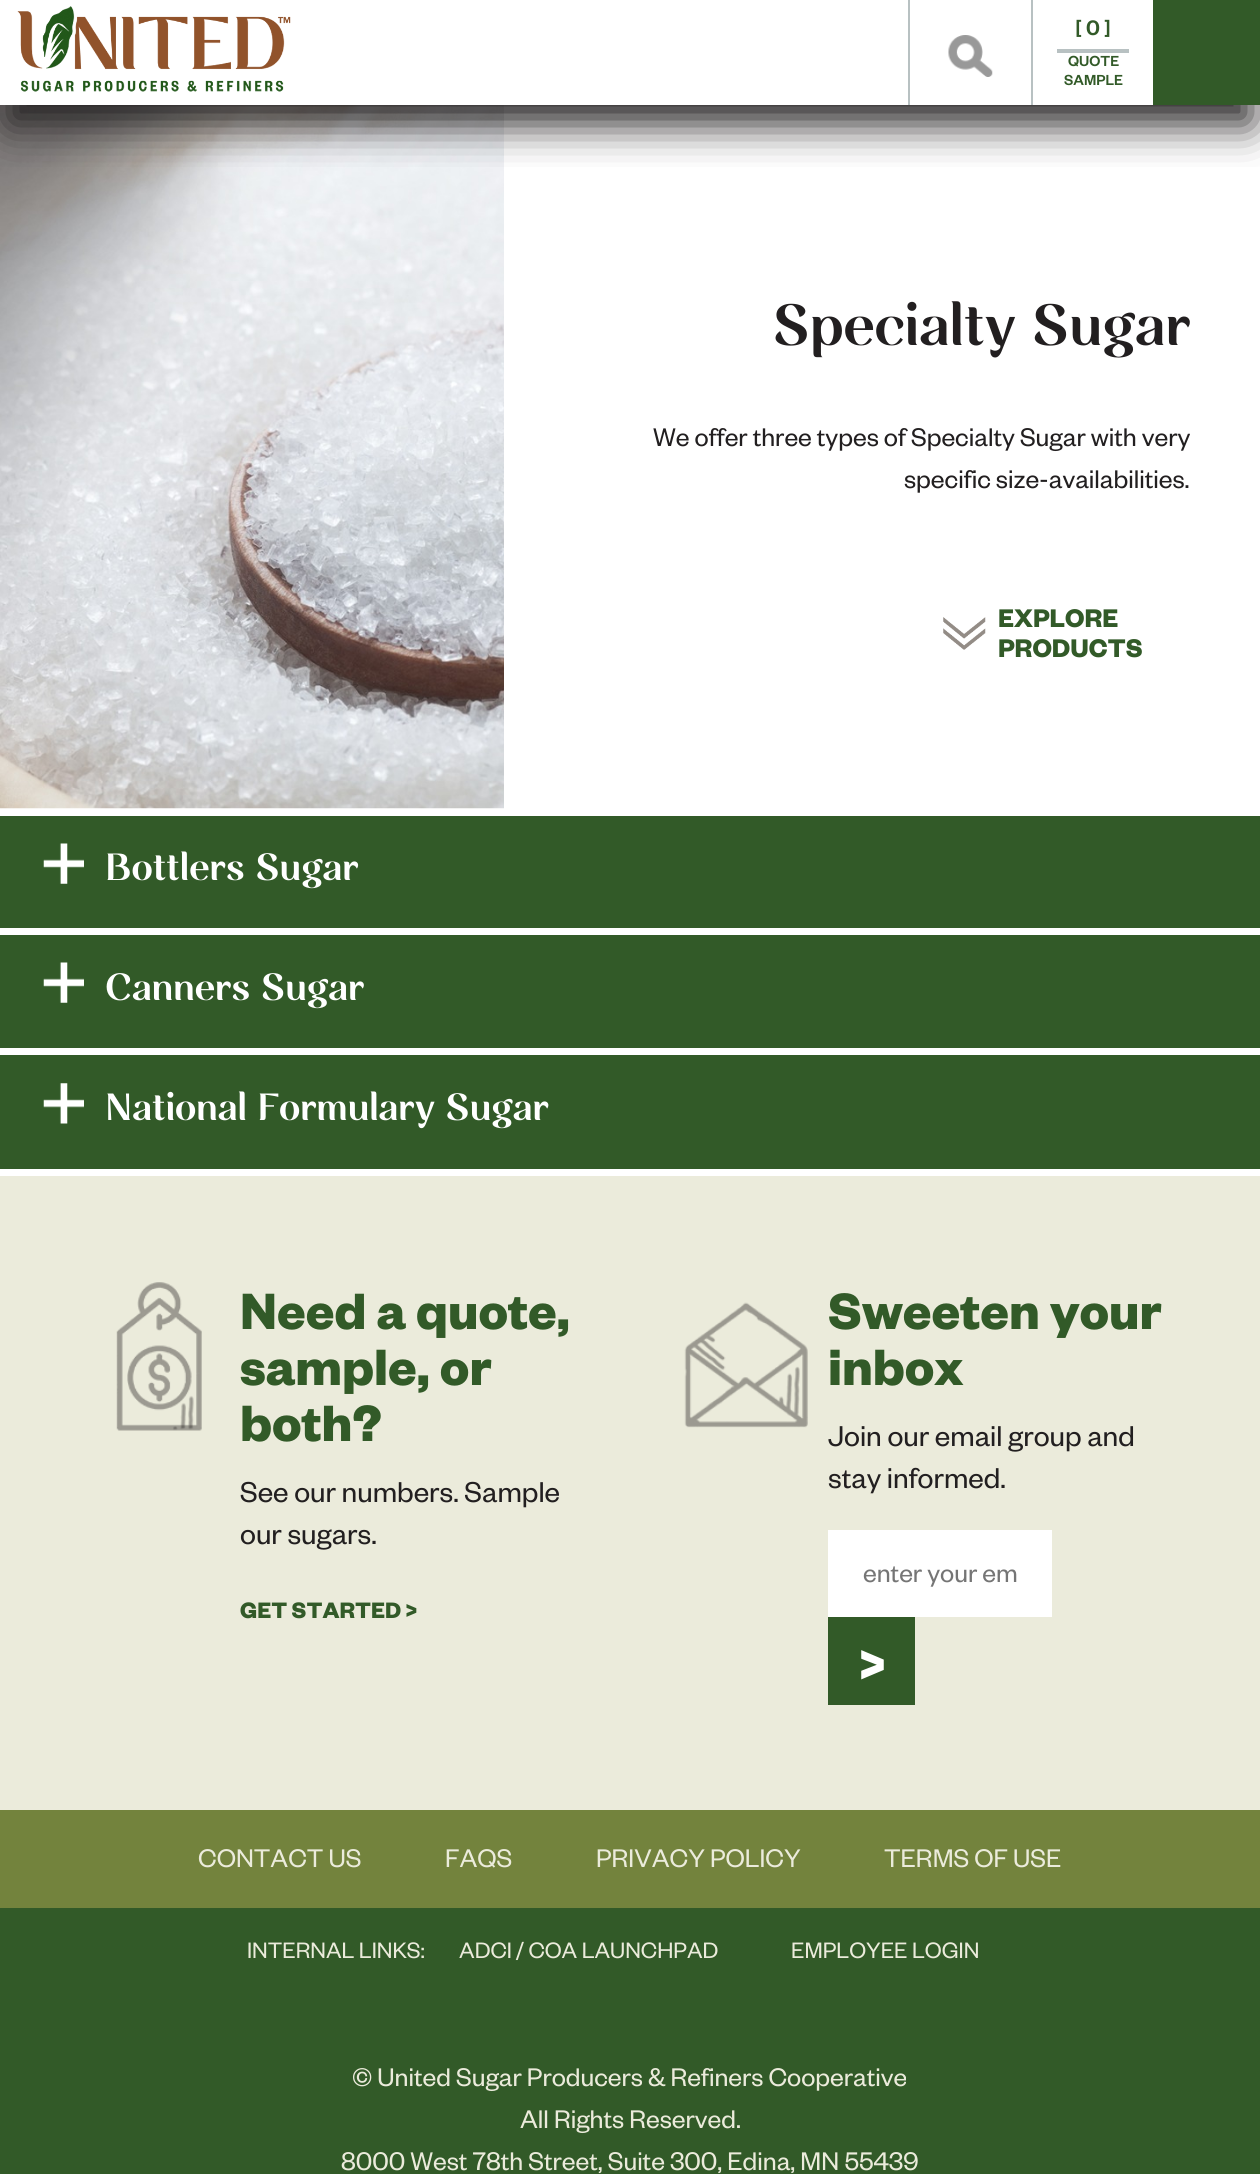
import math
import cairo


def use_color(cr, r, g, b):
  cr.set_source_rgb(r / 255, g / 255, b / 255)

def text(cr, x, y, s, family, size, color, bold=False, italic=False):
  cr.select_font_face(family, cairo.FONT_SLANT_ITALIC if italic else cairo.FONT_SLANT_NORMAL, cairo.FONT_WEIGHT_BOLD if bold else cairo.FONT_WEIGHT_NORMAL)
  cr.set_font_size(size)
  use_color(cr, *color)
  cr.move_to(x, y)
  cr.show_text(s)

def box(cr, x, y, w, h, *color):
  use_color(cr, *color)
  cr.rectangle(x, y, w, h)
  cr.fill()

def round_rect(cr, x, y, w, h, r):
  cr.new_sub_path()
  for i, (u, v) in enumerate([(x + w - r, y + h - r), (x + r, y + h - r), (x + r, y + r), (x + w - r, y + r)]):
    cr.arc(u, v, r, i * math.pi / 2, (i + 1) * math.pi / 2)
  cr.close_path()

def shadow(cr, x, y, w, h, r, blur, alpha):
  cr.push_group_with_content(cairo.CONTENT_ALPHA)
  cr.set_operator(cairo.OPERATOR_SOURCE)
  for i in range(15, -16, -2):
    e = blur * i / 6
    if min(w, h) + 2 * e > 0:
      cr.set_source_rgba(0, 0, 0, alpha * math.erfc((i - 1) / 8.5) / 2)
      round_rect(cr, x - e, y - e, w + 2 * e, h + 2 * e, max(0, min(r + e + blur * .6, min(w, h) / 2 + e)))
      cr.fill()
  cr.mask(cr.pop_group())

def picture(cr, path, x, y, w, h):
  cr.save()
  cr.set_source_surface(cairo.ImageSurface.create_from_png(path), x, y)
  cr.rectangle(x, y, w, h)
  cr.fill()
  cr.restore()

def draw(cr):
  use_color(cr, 255, 255, 255)
  cr.paint()
  picture(cr, "img_03.png", 0, 105, 504, 704)
  cr.save()
  cr.rectangle(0, 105, 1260, 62)
  cr.clip()
  use_color(cr, 34, 31, 32)
  shadow(cr, 9, 37, 1242, 87, 0, 21, 1)
  cr.restore()
  picture(cr, "img_01.png", 17, 6, 274, 86)
  box(cr, 908, 0, 2, 105, 184, 193, 194)
  picture(cr, "img_02.png", 948, 35, 45, 42)
  box(cr, 1031, 0, 2, 105, 184, 193, 194)
  box(cr, 1057, 49, 72, 4, 184, 193, 194)
  box(cr, 1153, 0, 107, 105, 50, 90, 40)
  picture(cr, "img_04.png", 943, 617, 43, 33)
  box(cr, 0, 816, 1260, 112, 50, 90, 40)
  picture(cr, "img_05.png", 43, 843, 41, 41)
  box(cr, 0, 935, 1260, 113, 50, 90, 40)
  picture(cr, "img_05.png", 43, 962, 41, 41)
  box(cr, 0, 1055, 1260, 114, 50, 90, 40)
  picture(cr, "img_06.png", 43, 1083, 41, 41)
  box(cr, 0, 1176, 1260, 634, 235, 235, 219)
  picture(cr, "img_07.png", 116, 1282, 86, 149)
  picture(cr, "img_08.png", 684, 1302, 124, 126)
  box(cr, 828, 1530, 224, 87, 255, 255, 255)
  box(cr, 828, 1617, 87, 88, 50, 90, 40)
  box(cr, 0, 1908, 1260, 266, 50, 90, 40)
  box(cr, 0, 1810, 1260, 98, 115, 131, 61)
  text(cr, 1075, 35, "[ 0 ]", "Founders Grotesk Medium", 23, (50, 90, 40))
  text(cr, 1068, 66, "QUOTE", "Founders Grotesk Medium", 16, (50, 90, 40))
  text(cr, 1064, 85, "SAMPLE", "Founders Grotesk Medium", 16, (50, 90, 40))
  text(cr, 772, 345, "Specialty Sugar", "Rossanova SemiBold", 62.5, (34, 31, 32))
  text(cr, 653, 446, "We offer three types of Specialty Sugar with very", "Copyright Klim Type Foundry", 28, (34, 31, 32))
  text(cr, 904, 488, "specific size-availabilities.", "Copyright Klim Type Foundry", 28, (34, 31, 32))
  text(cr, 998, 627, "EXPLORE", "Copyright Klim Type Foundry", 28, (50, 90, 40), bold=True)
  text(cr, 998, 657, "PRODUCTS", "Copyright Klim Type Foundry", 28, (50, 90, 40), bold=True)
  text(cr, 105, 880, "Bottlers Sugar", "Rossanova SemiBold", 40.75, (255, 255, 255))
  text(cr, 105, 1000, "Canners Sugar", "Rossanova SemiBold", 40.75, (255, 255, 255))
  text(cr, 105, 1120, "National Formulary Sugar", "Rossanova SemiBold", 40.75, (255, 255, 255))
  text(cr, 240, 1329, "Need a quote,", "Copyright Klim Type Foundry", 56, (50, 90, 40), bold=True)
  text(cr, 240, 1385, "sample, or", "Copyright Klim Type Foundry", 56, (50, 90, 40), bold=True)
  text(cr, 240, 1441, "both?", "Copyright Klim Type Foundry", 56, (50, 90, 40), bold=True)
  text(cr, 240, 1502, "See our numbers. Sample", "Copyright Klim Type Foundry", 31.5, (34, 31, 32))
  text(cr, 240, 1544, "our sugars.", "Copyright Klim Type Foundry", 31.5, (34, 31, 32))
  text(cr, 240, 1618, "GET STARTED >", "Copyright Klim Type Foundry", 24.5, (50, 90, 40), bold=True)
  text(cr, 828, 1329, "Sweeten your", "Copyright Klim Type Foundry", 56, (50, 90, 40), bold=True)
  text(cr, 828, 1385, "inbox", "Copyright Klim Type Foundry", 56, (50, 90, 40), bold=True)
  text(cr, 828, 1446, "Join our email group and", "Copyright Klim Type Foundry", 31.5, (34, 31, 32))
  text(cr, 828, 1488, "stay informed.", "Copyright Klim Type Foundry", 31.5, (34, 31, 32))
  text(cr, 863, 1582, "enter your em", "Copyright Klim Type Foundry", 28, (117, 117, 117))
  text(cr, 859, 1682, ">", "Copyright Klim Type Foundry", 56, (255, 255, 255), bold=True)
  text(cr, 198, 1867, "CONTACT US", "Copyright Klim Type Foundry", 28, (235, 235, 219))
  text(cr, 445, 1867, "FAQS", "Copyright Klim Type Foundry", 28, (235, 235, 219))
  text(cr, 596, 1867, "PRIVACY POLICY", "Copyright Klim Type Foundry", 28, (235, 235, 219))
  text(cr, 884, 1867, "TERMS OF USE", "Copyright Klim Type Foundry", 28, (235, 235, 219))
  text(cr, 247, 1958, "INTERNAL LINKS:", "Copyright Klim Type Foundry", 24.5, (235, 235, 219))
  text(cr, 459, 1958, "ADCI / COA LAUNCHPAD", "Copyright Klim Type Foundry", 24.5, (235, 235, 219))
  text(cr, 791, 1958, "EMPLOYEE LOGIN", "Copyright Klim Type Foundry", 24.5, (235, 235, 219))
  text(cr, 352, 2086, "© United Sugar Producers & Refiners Cooperative", "Copyright Klim Type Foundry", 28, (235, 235, 219))
  text(cr, 520, 2128, "All Rights Reserved.", "Copyright Klim Type Foundry", 28, (235, 235, 219))
  text(cr, 341, 2170, "8000 West 78th Street, Suite 300, Edina, MN 55439", "Copyright Klim Type Foundry", 28, (235, 235, 219))


surface = cairo.ImageSurface(cairo.FORMAT_RGB24, 1260, 2174)
cr = cairo.Context(surface)
options = cairo.FontOptions()
options.set_hint_metrics(cairo.HINT_METRICS_OFF)
options.set_hint_style(cairo.HINT_STYLE_NONE)
cr.set_font_options(options)
cr.set_miter_limit(4)
draw(cr)
surface.write_to_png("out.png")
